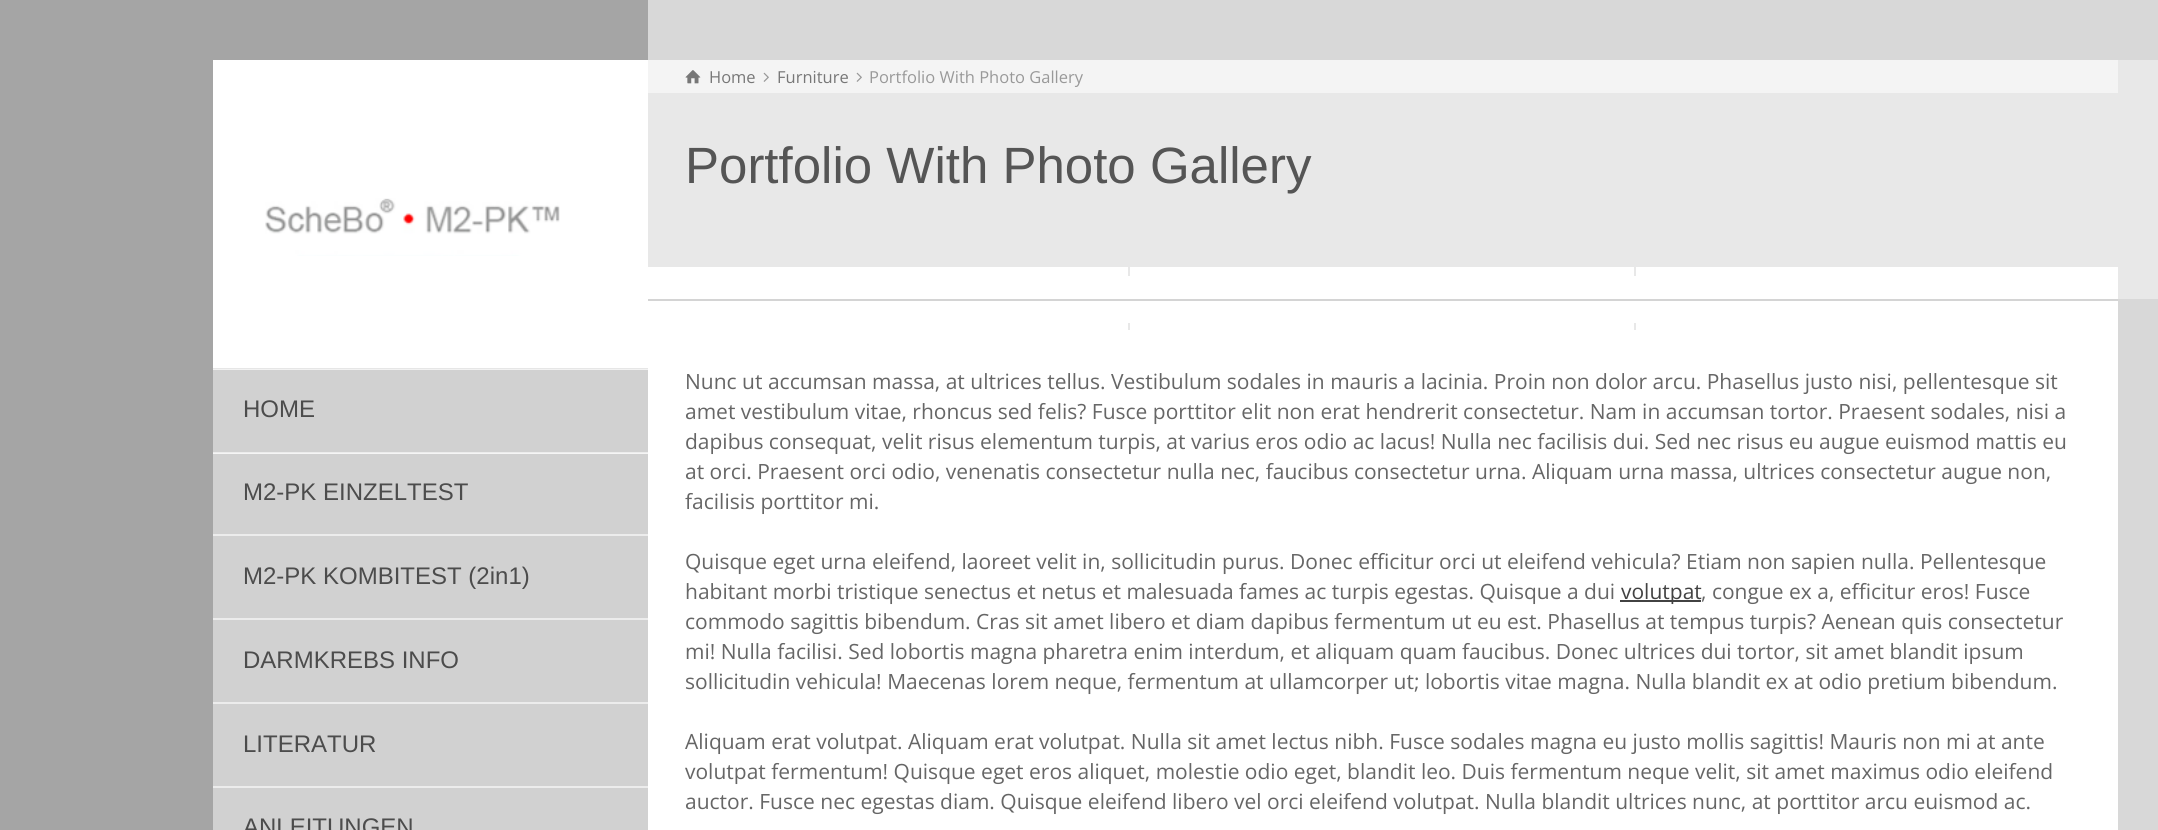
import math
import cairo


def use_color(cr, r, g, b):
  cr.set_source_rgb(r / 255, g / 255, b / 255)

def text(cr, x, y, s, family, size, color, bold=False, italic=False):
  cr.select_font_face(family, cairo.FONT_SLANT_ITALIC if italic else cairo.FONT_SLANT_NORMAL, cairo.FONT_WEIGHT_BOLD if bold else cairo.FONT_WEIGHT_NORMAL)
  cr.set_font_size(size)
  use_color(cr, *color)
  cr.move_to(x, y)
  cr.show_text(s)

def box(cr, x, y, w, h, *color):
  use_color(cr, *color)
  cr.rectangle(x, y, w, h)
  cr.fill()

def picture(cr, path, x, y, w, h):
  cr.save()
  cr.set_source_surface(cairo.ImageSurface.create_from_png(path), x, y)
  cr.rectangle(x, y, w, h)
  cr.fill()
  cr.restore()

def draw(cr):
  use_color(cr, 216, 216, 216)
  cr.paint()
  box(cr, 0, 0, 648, 830, 165, 165, 165)
  box(cr, 213, 454, 435, 80, 209, 209, 209)
  box(cr, 213, 370, 435, 82, 209, 209, 209)
  box(cr, 213, 60, 435, 308, 255, 255, 255)
  box(cr, 213, 368, 435, 1, 230, 230, 230)
  box(cr, 213, 369, 435, 1, 242, 242, 242)
  picture(cr, "img_01.png", 265, 198, 295, 58)
  box(cr, 213, 452, 435, 1, 236, 236, 236)
  box(cr, 213, 453, 435, 1, 245, 245, 245)
  box(cr, 213, 534, 435, 2, 236, 236, 236)
  box(cr, 213, 536, 435, 82, 209, 209, 209)
  box(cr, 213, 618, 435, 2, 236, 236, 236)
  box(cr, 213, 620, 435, 82, 209, 209, 209)
  box(cr, 213, 702, 435, 2, 236, 236, 236)
  box(cr, 213, 704, 435, 82, 209, 209, 209)
  box(cr, 213, 786, 435, 2, 236, 236, 236)
  box(cr, 213, 788, 435, 42, 209, 209, 209)
  box(cr, 648, 60, 1510, 239, 232, 232, 232)
  box(cr, 648, 60, 1470, 33, 244, 244, 244)
  picture(cr, "img_02.png", 685, 70, 16, 14)
  picture(cr, "img_03.png", 763, 72, 6, 10)
  picture(cr, "img_03.png", 856, 72, 6, 10)
  box(cr, 648, 267, 1470, 63, 255, 255, 255)
  box(cr, 1128, 267, 2, 9, 232, 232, 232)
  box(cr, 1634, 267, 2, 9, 232, 232, 232)
  box(cr, 648, 299, 1470, 2, 212, 212, 212)
  box(cr, 1128, 323, 2, 7, 232, 232, 232)
  box(cr, 1634, 323, 2, 7, 232, 232, 232)
  box(cr, 648, 330, 1470, 500, 255, 255, 255)
  box(cr, 1620, 600, 81, 2, 66, 66, 66)
  text(cr, 243, 417, "HOME", "Liberation Sans", 24, (76, 76, 76))
  text(cr, 243, 500, "M2-PK EINZELTEST", "Liberation Sans", 24, (76, 76, 76))
  text(cr, 243, 584, "M2-PK KOMBITEST (2in1)", "Liberation Sans", 24, (76, 76, 76))
  text(cr, 243, 668, "DARMKREBS INFO", "Liberation Sans", 24, (76, 76, 76))
  text(cr, 243, 752, "LITERATUR", "Liberation Sans", 24, (76, 76, 76))
  text(cr, 243, 835, "ANLEITUNGEN", "Liberation Sans", 24, (76, 76, 76))
  text(cr, 709, 83, "Home", "Open Sans", 16.5, (119, 119, 119))
  text(cr, 777, 83, "Furniture", "Open Sans", 16.5, (119, 119, 119))
  text(cr, 869, 83, "Portfolio With Photo Gallery", "Open Sans", 16.5, (153, 153, 153))
  text(cr, 685, 183, "Portfolio With Photo Gallery", "Liberation Sans", 51, (85, 85, 85))
  text(cr, 685, 389, "Nunc ut accumsan massa, at ultrices tellus. Vestibulum sodales in mauris a lacinia. Proin non dolor arcu. Phasellus justo nisi, pellentesque sit", "Open Sans", 21, (102, 102, 102))
  text(cr, 685, 419, "amet vestibulum vitae, rhoncus sed felis? Fusce porttitor elit non erat hendrerit consectetur. Nam in accumsan tortor. Praesent sodales, nisi a", "Open Sans", 21, (102, 102, 102))
  text(cr, 685, 449, "dapibus consequat, velit risus elementum turpis, at varius eros odio ac lacus! Nulla nec facilisis dui. Sed nec risus eu augue euismod mattis eu", "Open Sans", 21, (102, 102, 102))
  text(cr, 685, 479, "at orci. Praesent orci odio, venenatis consectetur nulla nec, faucibus consectetur urna. Aliquam urna massa, ultrices consectetur augue non,", "Open Sans", 21, (102, 102, 102))
  text(cr, 685, 509, "facilisis porttitor mi.", "Open Sans", 21, (102, 102, 102))
  text(cr, 685, 569, "Quisque eget urna eleifend, laoreet velit in, sollicitudin purus. Donec efficitur orci ut eleifend vehicula? Etiam non sapien nulla. Pellentesque", "Open Sans", 21, (102, 102, 102))
  text(cr, 685, 599, "habitant morbi tristique senectus et netus et malesuada fames ac turpis egestas. Quisque a dui", "Open Sans", 21, (102, 102, 102))
  text(cr, 1621, 599, "volutpat", "Open Sans", 21, (66, 66, 66))
  text(cr, 1701, 599, ", congue ex a, efficitur eros! Fusce", "Open Sans", 21, (102, 102, 102))
  text(cr, 685, 629, "commodo sagittis bibendum. Cras sit amet libero et diam dapibus fermentum ut eu est. Phasellus at tempus turpis? Aenean quis consectetur", "Open Sans", 21, (102, 102, 102))
  text(cr, 685, 659, "mi! Nulla facilisi. Sed lobortis magna pharetra enim interdum, et aliquam quam faucibus. Donec ultrices dui tortor, sit amet blandit ipsum", "Open Sans", 21, (102, 102, 102))
  text(cr, 685, 689, "sollicitudin vehicula! Maecenas lorem neque, fermentum at ullamcorper ut; lobortis vitae magna. Nulla blandit ex at odio pretium bibendum.", "Open Sans", 21, (102, 102, 102))
  text(cr, 685, 749, "Aliquam erat volutpat. Aliquam erat volutpat. Nulla sit amet lectus nibh. Fusce sodales magna eu justo mollis sagittis! Mauris non mi at ante", "Open Sans", 21, (102, 102, 102))
  text(cr, 685, 779, "volutpat fermentum! Quisque eget eros aliquet, molestie odio eget, blandit leo. Duis fermentum neque velit, sit amet maximus odio eleifend", "Open Sans", 21, (102, 102, 102))
  text(cr, 685, 809, "auctor. Fusce nec egestas diam. Quisque eleifend libero vel orci eleifend volutpat. Nulla blandit ultrices nunc, at porttitor arcu euismod ac.", "Open Sans", 21, (102, 102, 102))


surface = cairo.ImageSurface(cairo.FORMAT_RGB24, 2158, 830)
cr = cairo.Context(surface)
options = cairo.FontOptions()
options.set_hint_metrics(cairo.HINT_METRICS_OFF)
options.set_hint_style(cairo.HINT_STYLE_NONE)
cr.set_font_options(options)
cr.set_miter_limit(4)
draw(cr)
surface.write_to_png("out.png")
